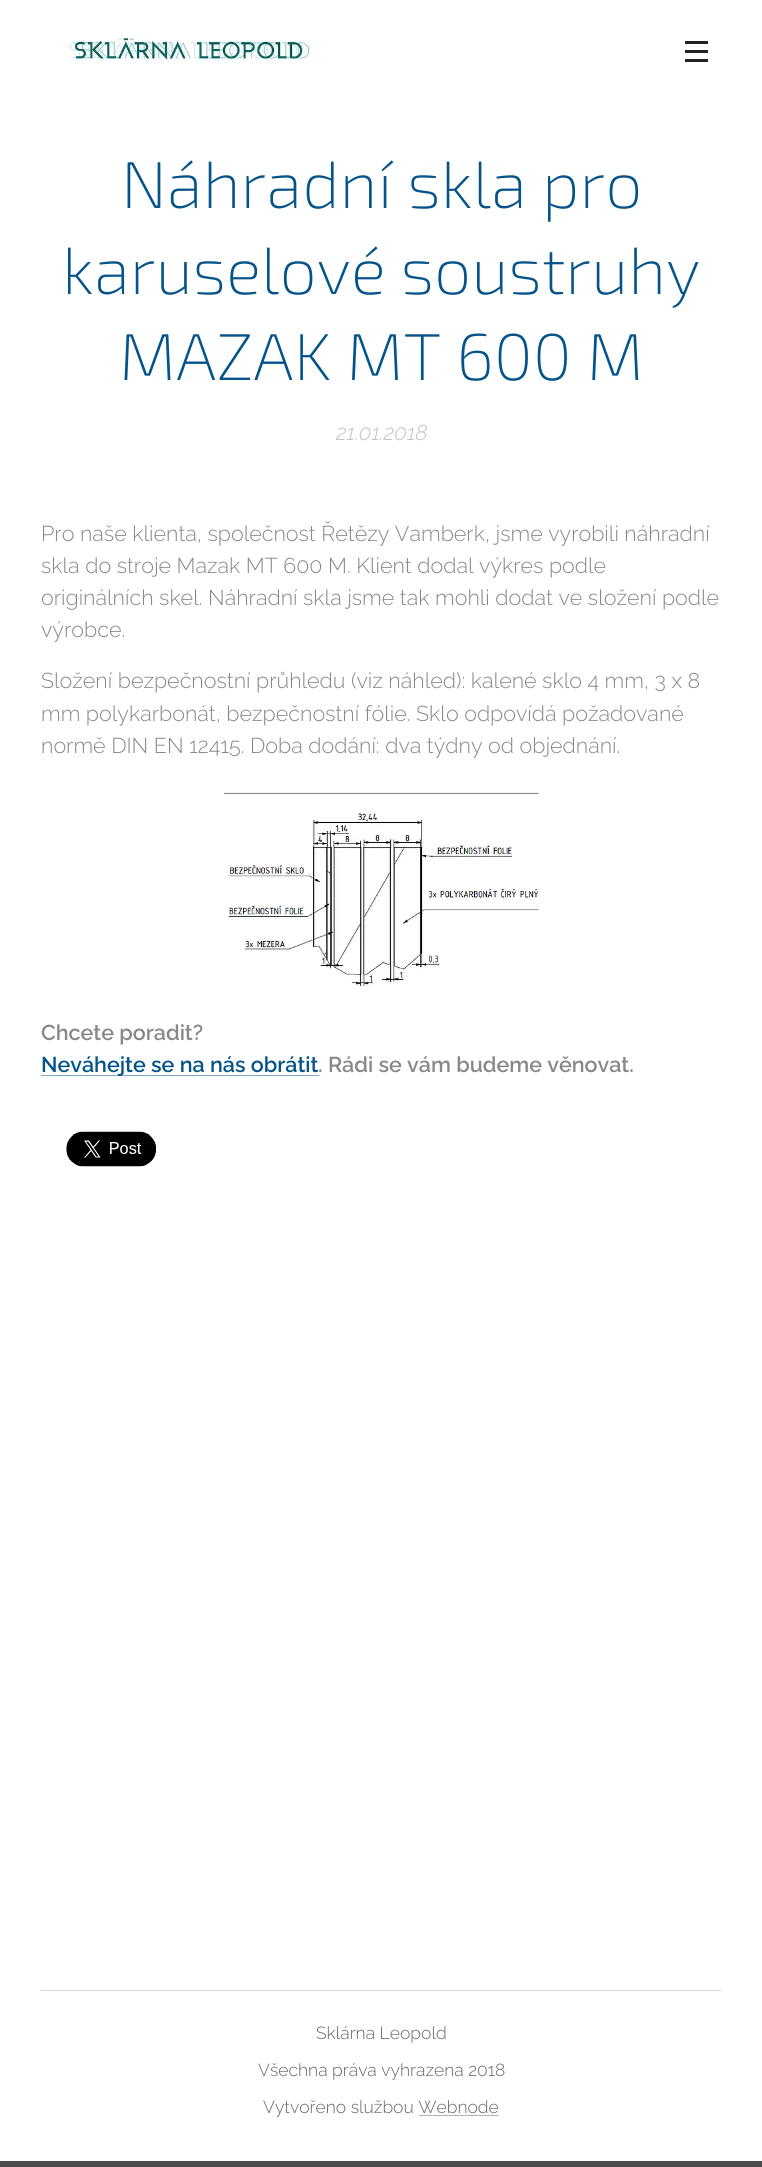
import math
import cairo


def use_color(cr, r, g, b):
  cr.set_source_rgb(r / 255, g / 255, b / 255)

def text(cr, x, y, s, family, size, color, bold=False, italic=False):
  cr.select_font_face(family, cairo.FONT_SLANT_ITALIC if italic else cairo.FONT_SLANT_NORMAL, cairo.FONT_WEIGHT_BOLD if bold else cairo.FONT_WEIGHT_NORMAL)
  cr.set_font_size(size)
  use_color(cr, *color)
  cr.move_to(x, y)
  cr.show_text(s)

def box(cr, x, y, w, h, *color):
  use_color(cr, *color)
  cr.rectangle(x, y, w, h)
  cr.fill()

def picture(cr, path, x, y, w, h):
  cr.save()
  cr.set_source_surface(cairo.ImageSurface.create_from_png(path), x, y)
  cr.rectangle(x, y, w, h)
  cr.fill()
  cr.restore()

def draw(cr):
  use_color(cr, 255, 255, 255)
  cr.paint()
  picture(cr, "img_01.png", 69, 37, 243, 27)
  box(cr, 685, 50, 23, 3, 34, 34, 34)
  box(cr, 685, 41, 23, 3, 34, 34, 34)
  box(cr, 685, 59, 23, 3, 34, 34, 34)
  picture(cr, "img_02.png", 223, 792, 316, 194)
  box(cr, 41, 1075, 278, 1, 130, 169, 196)
  picture(cr, "img_03.png", 66, 1131, 91, 36)
  box(cr, 41, 1990, 680, 1, 212, 212, 212)
  box(cr, 0, 2161, 762, 6, 76, 76, 76)
  text(cr, 121, 208, "Náhradní skla pro", "Exo 2 ExtraLight", 66.25, (4, 83, 137))
  text(cr, 62, 294, "karuselové soustruhy", "Exo 2 ExtraLight", 66.25, (4, 83, 137))
  text(cr, 119, 380, "MAZAK MT 600 M", "Exo 2 ExtraLight", 66.25, (4, 83, 137))
  text(cr, 336, 440, "21.01.2018", "Raleway Light", 21.5, (195, 195, 195), italic=True)
  text(cr, 41, 541, "Pro naše klienta, společnost Řetězy Vamberk, jsme vyrobili náhradní", "Raleway Light", 21.5, (136, 136, 136))
  text(cr, 41, 573, "skla do stroje Mazak MT 600 M. Klient dodal výkres podle", "Raleway Light", 21.5, (136, 136, 136))
  text(cr, 41, 605, "originálních skel. Náhradní skla jsme tak mohli dodat ve složení podle", "Raleway Light", 21.5, (136, 136, 136))
  text(cr, 41, 637, "výrobce.", "Raleway Light", 21.5, (136, 136, 136))
  text(cr, 41, 688, "Složení bezpečnostní průhledu (viz náhled): kalené sklo 4 mm, 3 x 8", "Raleway Light", 21.5, (136, 136, 136))
  text(cr, 41, 721, "mm polykarbonát, bezpečnostní fólie. Sklo odpovídá požadované", "Raleway Light", 21.5, (136, 136, 136))
  text(cr, 41, 753, "normě DIN EN 12415. Doba dodání: dva týdny od objednání.", "Raleway Light", 21.5, (136, 136, 136))
  text(cr, 41, 1040, "Chcete poradit?", "Raleway SemiBold", 21.5, (136, 136, 136))
  text(cr, 41, 1072, "Neváhejte se na nás obrátit", "Raleway SemiBold", 21.5, (4, 83, 137))
  text(cr, 318, 1072, ". Rádi se vám budeme věnovat.", "Raleway SemiBold", 21.5, (136, 136, 136))
  text(cr, 316, 2039, "Sklárna Leopold", "Raleway Light", 17.5, (102, 102, 102))
  text(cr, 258, 2076, "Všechna práva vyhrazena 2018", "Raleway Light", 17.5, (102, 102, 102))
  text(cr, 263, 2113, "Vytvořeno službou Webnode", "Raleway Light", 17.5, (102, 102, 102))
  box(cr, 419, 2115, 80, 1, 179, 179, 179)


surface = cairo.ImageSurface(cairo.FORMAT_RGB24, 762, 2167)
cr = cairo.Context(surface)
options = cairo.FontOptions()
options.set_hint_metrics(cairo.HINT_METRICS_OFF)
options.set_hint_style(cairo.HINT_STYLE_NONE)
cr.set_font_options(options)
cr.set_miter_limit(4)
draw(cr)
surface.write_to_png("out.png")
